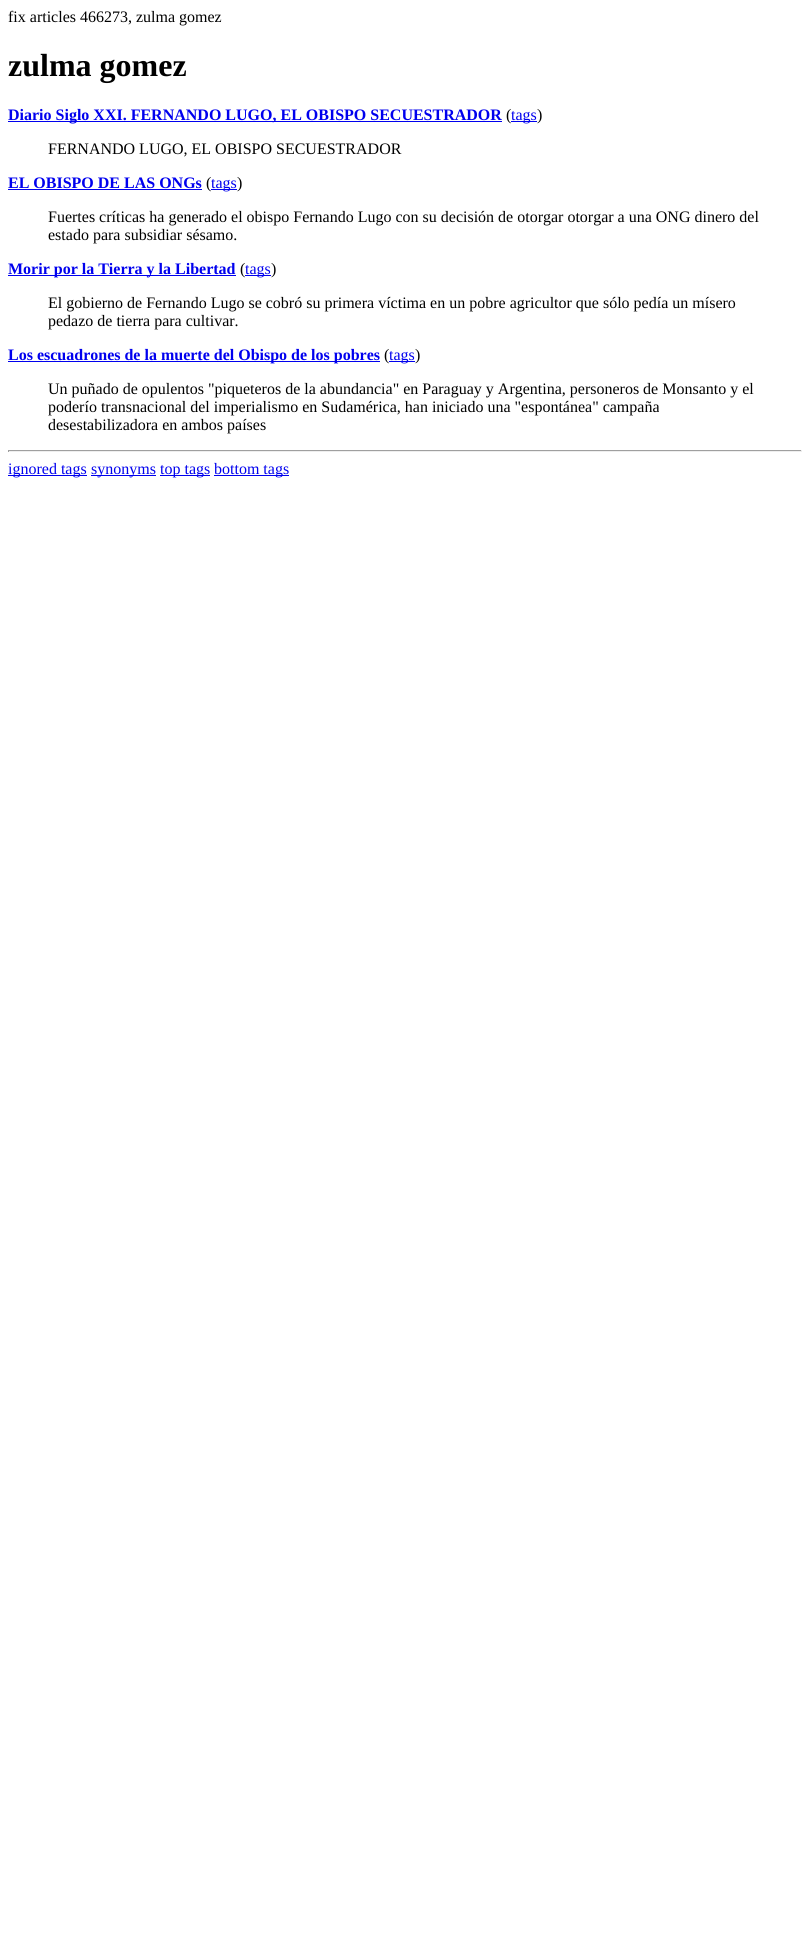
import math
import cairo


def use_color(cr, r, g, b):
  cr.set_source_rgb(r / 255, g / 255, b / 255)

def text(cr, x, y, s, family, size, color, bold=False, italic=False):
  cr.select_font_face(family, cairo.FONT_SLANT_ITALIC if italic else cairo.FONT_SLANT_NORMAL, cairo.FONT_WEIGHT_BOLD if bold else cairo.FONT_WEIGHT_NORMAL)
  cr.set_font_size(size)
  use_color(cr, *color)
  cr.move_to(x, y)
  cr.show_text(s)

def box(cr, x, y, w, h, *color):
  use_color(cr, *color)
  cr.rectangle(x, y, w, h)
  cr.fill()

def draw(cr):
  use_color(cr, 255, 255, 255)
  cr.paint()
  box(cr, 8, 121, 494, 1, 0, 0, 238)
  box(cr, 511, 121, 26, 1, 0, 0, 238)
  box(cr, 8, 189, 194, 1, 0, 0, 238)
  box(cr, 211, 189, 26, 1, 0, 0, 238)
  box(cr, 8, 275, 228, 1, 0, 0, 238)
  box(cr, 245, 275, 26, 1, 0, 0, 238)
  box(cr, 8, 361, 372, 1, 0, 0, 238)
  box(cr, 389, 361, 26, 1, 0, 0, 238)
  box(cr, 8, 450, 794, 1, 159, 159, 159)
  box(cr, 801, 450, 1, 2, 238, 238, 238)
  box(cr, 8, 451, 794, 1, 238, 238, 238)
  box(cr, 8, 450, 1, 2, 159, 159, 159)
  box(cr, 8, 475, 79, 1, 0, 0, 238)
  box(cr, 91, 475, 65, 1, 0, 0, 238)
  box(cr, 160, 475, 50, 1, 0, 0, 238)
  box(cr, 214, 475, 75, 1, 0, 0, 238)
  text(cr, 8, 22, "fix articles 466273, zulma gomez", "Liberation Serif", 16, (0, 0, 0))
  text(cr, 8, 76, "zulma gomez", "Liberation Serif", 32, (0, 0, 0), bold=True)
  text(cr, 8, 120, "Diario Siglo XXI. FERNANDO LUGO, EL OBISPO SECUESTRADOR", "Liberation Serif", 16, (0, 0, 238), bold=True)
  text(cr, 506, 120, "(", "Liberation Serif", 16, (0, 0, 0))
  text(cr, 511, 120, "tags", "Liberation Serif", 16, (0, 0, 238))
  text(cr, 537, 120, ")", "Liberation Serif", 16, (0, 0, 0))
  text(cr, 48, 154, "FERNANDO LUGO, EL OBISPO SECUESTRADOR", "Liberation Serif", 16, (0, 0, 0))
  text(cr, 8, 188, "EL OBISPO DE LAS ONGs", "Liberation Serif", 16, (0, 0, 238), bold=True)
  text(cr, 206, 188, "(", "Liberation Serif", 16, (0, 0, 0))
  text(cr, 211, 188, "tags", "Liberation Serif", 16, (0, 0, 238))
  text(cr, 237, 188, ")", "Liberation Serif", 16, (0, 0, 0))
  text(cr, 48, 222, "Fuertes críticas ha generado el obispo Fernando Lugo con su decisión de otorgar otorgar a una ONG dinero del", "Liberation Serif", 16, (0, 0, 0))
  text(cr, 48, 240, "estado para subsidiar sésamo.", "Liberation Serif", 16, (0, 0, 0))
  text(cr, 8, 274, "Morir por la Tierra y la Libertad", "Liberation Serif", 16, (0, 0, 238), bold=True)
  text(cr, 240, 274, "(", "Liberation Serif", 16, (0, 0, 0))
  text(cr, 245, 274, "tags", "Liberation Serif", 16, (0, 0, 238))
  text(cr, 271, 274, ")", "Liberation Serif", 16, (0, 0, 0))
  text(cr, 48, 308, "El gobierno de Fernando Lugo se cobró su primera víctima en un pobre agricultor que sólo pedía un mísero", "Liberation Serif", 16, (0, 0, 0))
  text(cr, 48, 326, "pedazo de tierra para cultivar.", "Liberation Serif", 16, (0, 0, 0))
  text(cr, 8, 360, "Los escuadrones de la muerte del Obispo de los pobres", "Liberation Serif", 16, (0, 0, 238), bold=True)
  text(cr, 384, 360, "(", "Liberation Serif", 16, (0, 0, 0))
  text(cr, 389, 360, "tags", "Liberation Serif", 16, (0, 0, 238))
  text(cr, 415, 360, ")", "Liberation Serif", 16, (0, 0, 0))
  text(cr, 48, 394, "Un puñado de opulentos \"piqueteros de la abundancia\" en Paraguay y Argentina, personeros de Monsanto y el", "Liberation Serif", 16, (0, 0, 0))
  text(cr, 48, 412, "poderío transnacional del imperialismo en Sudamérica, han iniciado una \"espontánea\" campaña", "Liberation Serif", 16, (0, 0, 0))
  text(cr, 48, 430, "desestabilizadora en ambos países", "Liberation Serif", 16, (0, 0, 0))
  text(cr, 8, 474, "ignored tags", "Liberation Serif", 16, (0, 0, 238))
  text(cr, 91, 474, "synonyms", "Liberation Serif", 16, (0, 0, 238))
  text(cr, 160, 474, "top tags", "Liberation Serif", 16, (0, 0, 238))
  text(cr, 214, 474, "bottom tags", "Liberation Serif", 16, (0, 0, 238))


surface = cairo.ImageSurface(cairo.FORMAT_RGB24, 810, 1943)
cr = cairo.Context(surface)
options = cairo.FontOptions()
options.set_hint_metrics(cairo.HINT_METRICS_OFF)
options.set_hint_style(cairo.HINT_STYLE_NONE)
cr.set_font_options(options)
cr.set_miter_limit(4)
draw(cr)
surface.write_to_png("out.png")
